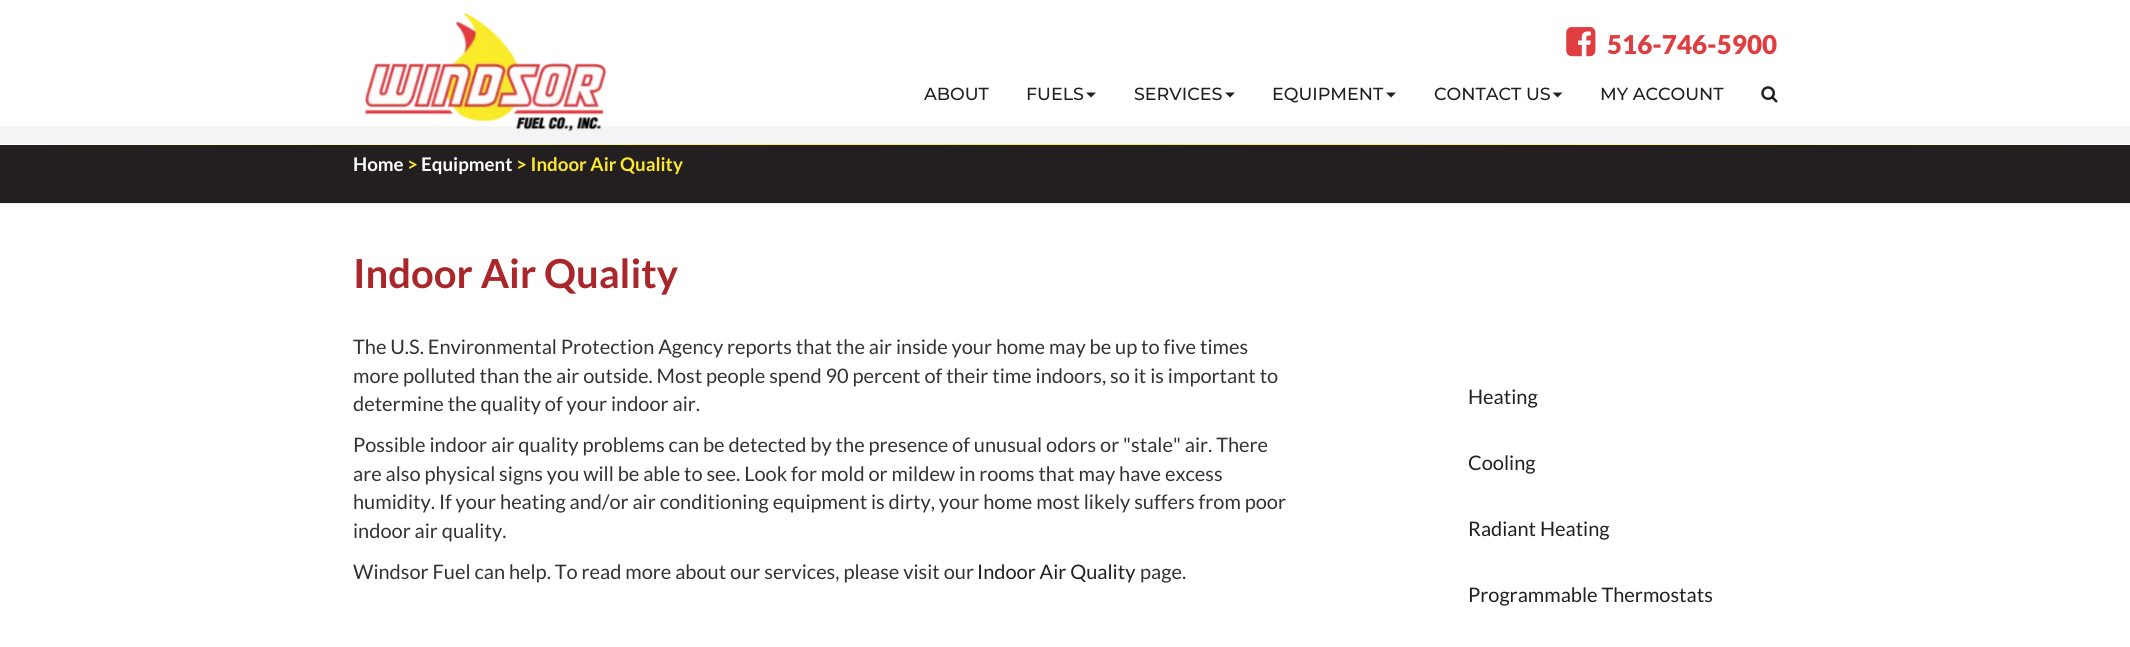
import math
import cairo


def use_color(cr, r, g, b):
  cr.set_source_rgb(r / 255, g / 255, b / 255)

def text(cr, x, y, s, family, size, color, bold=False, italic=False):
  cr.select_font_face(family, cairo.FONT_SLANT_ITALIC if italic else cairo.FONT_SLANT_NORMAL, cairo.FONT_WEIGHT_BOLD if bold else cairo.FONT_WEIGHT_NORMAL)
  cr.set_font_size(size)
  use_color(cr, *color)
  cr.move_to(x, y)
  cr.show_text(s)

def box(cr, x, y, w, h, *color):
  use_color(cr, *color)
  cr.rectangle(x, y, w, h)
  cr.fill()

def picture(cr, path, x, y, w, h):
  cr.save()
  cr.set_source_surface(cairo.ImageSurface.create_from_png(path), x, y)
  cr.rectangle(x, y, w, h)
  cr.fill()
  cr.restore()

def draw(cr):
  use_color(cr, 255, 255, 255)
  cr.paint()
  box(cr, 0, 126, 2130, 18, 244, 244, 244)
  picture(cr, "img_01.png", 364, 12, 243, 120)
  picture(cr, "img_02.png", 1566, 27, 30, 30)
  use_color(cr, 35, 31, 32)
  cr.new_path()
  cr.move_to(1086, 92.5)
  cr.line_to(1096, 92.5)
  cr.line_to(1091, 97.5)
  cr.close_path()
  cr.fill()
  cr.new_path()
  cr.move_to(1225, 92.5)
  cr.line_to(1235, 92.5)
  cr.line_to(1230, 97.5)
  cr.close_path()
  cr.fill()
  cr.new_path()
  cr.move_to(1386, 92.5)
  cr.line_to(1396, 92.5)
  cr.line_to(1391, 97.5)
  cr.close_path()
  cr.fill()
  cr.new_path()
  cr.move_to(1552.5, 92.5)
  cr.line_to(1562.5, 92.5)
  cr.line_to(1557.5, 97.5)
  cr.close_path()
  cr.fill()
  picture(cr, "img_03.png", 1761, 86, 17, 17)
  gradient = cairo.LinearGradient(0, 144, 2130, 144)
  gradient.add_color_stop_rgba(0, 1, 1, 1, 1)
  gradient.add_color_stop_rgba(0.5, 0.988, 0.914, 0.169, 1)
  gradient.add_color_stop_rgba(1, 1, 1, 1, 1)
  cr.set_source(gradient)
  cr.rectangle(13, 144, 2104, 1)
  cr.fill()
  box(cr, 0, 145, 2130, 58, 35, 31, 32)
  box(cr, 0, 203, 2130, 1, 238, 238, 238)
  text(cr, 1607, 54, "516-746-5900", "Lato Black", 26, (223, 61, 64))
  text(cr, 924, 100, "ABOUT", "Montserrat Medium", 17.5, (35, 31, 32))
  text(cr, 1026, 100, "FUELS", "Montserrat Medium", 17.5, (35, 31, 32))
  text(cr, 1134, 100, "SERVICES", "Montserrat Medium", 17.5, (35, 31, 32))
  text(cr, 1272, 100, "EQUIPMENT", "Montserrat Medium", 17.5, (35, 31, 32))
  text(cr, 1434, 100, "CONTACT US", "Montserrat Medium", 17.5, (35, 31, 32))
  text(cr, 1600, 100, "MY ACCOUNT", "Montserrat Medium", 17.5, (35, 31, 32))
  text(cr, 353, 171, "Home", "Lato", 18.75, (255, 255, 255), bold=True)
  text(cr, 407, 171, ">", "Lato", 18.75, (252, 233, 43), bold=True)
  text(cr, 421, 171, "Equipment", "Lato", 18.75, (255, 255, 255), bold=True)
  text(cr, 516, 171, "> Indoor Air Quality", "Lato", 18.75, (252, 233, 43), bold=True)
  text(cr, 353, 288, "Indoor Air Quality", "Lato", 40, (171, 38, 42), bold=True)
  text(cr, 353, 354, "The U.S. Environmental Protection Agency reports that the air inside your home may be up to five times", "Lato", 20, (51, 51, 51))
  text(cr, 353, 383, "more polluted than the air outside. Most people spend 90 percent of their time indoors, so it is important to", "Lato", 20, (51, 51, 51))
  text(cr, 353, 411, "determine the quality of your indoor air.", "Lato", 20, (51, 51, 51))
  text(cr, 353, 452, "Possible indoor air quality problems can be detected by the presence of unusual odors or \"stale\" air. There", "Lato", 20, (51, 51, 51))
  text(cr, 353, 481, "are also physical signs you will be able to see. Look for mold or mildew in rooms that may have excess", "Lato", 20, (51, 51, 51))
  text(cr, 353, 509, "humidity. If your heating and/or air conditioning equipment is dirty, your home most likely suffers from poor", "Lato", 20, (51, 51, 51))
  text(cr, 353, 538, "indoor air quality.", "Lato", 20, (51, 51, 51))
  text(cr, 353, 579, "Windsor Fuel can help. To read more about our services, please visit our", "Lato", 20, (51, 51, 51))
  text(cr, 977, 579, "Indoor Air Quality", "Lato", 20, (35, 31, 32))
  text(cr, 1140, 579, "page.", "Lato", 20, (51, 51, 51))
  text(cr, 1468, 404, "Heating", "Lato", 20, (35, 31, 32))
  text(cr, 1468, 470, "Cooling", "Lato", 20, (35, 31, 32))
  text(cr, 1468, 536, "Radiant Heating", "Lato", 20, (35, 31, 32))
  text(cr, 1468, 602, "Programmable Thermostats", "Lato", 20, (35, 31, 32))


surface = cairo.ImageSurface(cairo.FORMAT_RGB24, 2130, 647)
cr = cairo.Context(surface)
options = cairo.FontOptions()
options.set_hint_metrics(cairo.HINT_METRICS_OFF)
options.set_hint_style(cairo.HINT_STYLE_NONE)
cr.set_font_options(options)
cr.set_miter_limit(4)
draw(cr)
surface.write_to_png("out.png")
